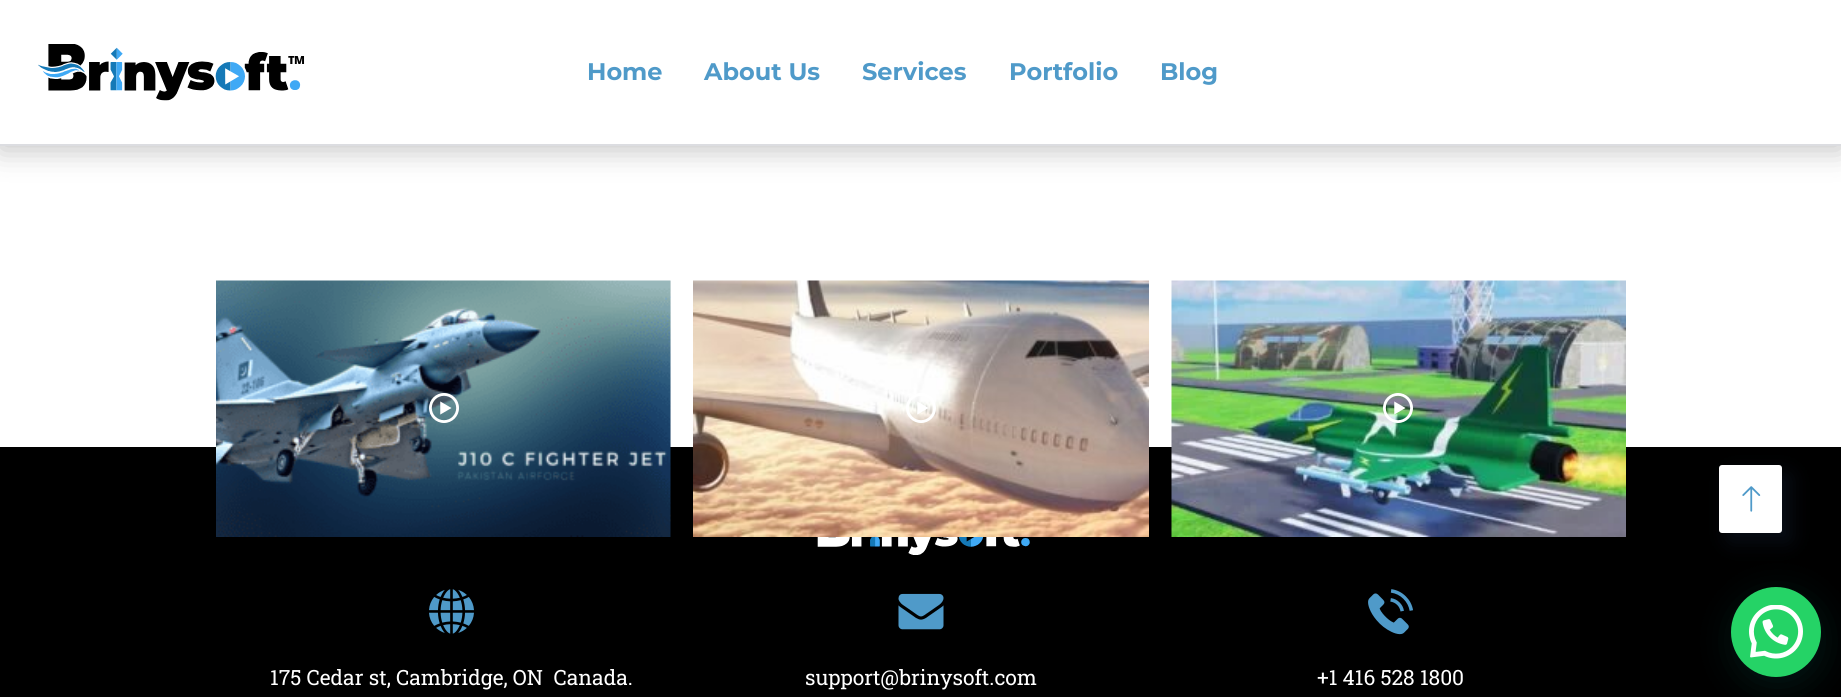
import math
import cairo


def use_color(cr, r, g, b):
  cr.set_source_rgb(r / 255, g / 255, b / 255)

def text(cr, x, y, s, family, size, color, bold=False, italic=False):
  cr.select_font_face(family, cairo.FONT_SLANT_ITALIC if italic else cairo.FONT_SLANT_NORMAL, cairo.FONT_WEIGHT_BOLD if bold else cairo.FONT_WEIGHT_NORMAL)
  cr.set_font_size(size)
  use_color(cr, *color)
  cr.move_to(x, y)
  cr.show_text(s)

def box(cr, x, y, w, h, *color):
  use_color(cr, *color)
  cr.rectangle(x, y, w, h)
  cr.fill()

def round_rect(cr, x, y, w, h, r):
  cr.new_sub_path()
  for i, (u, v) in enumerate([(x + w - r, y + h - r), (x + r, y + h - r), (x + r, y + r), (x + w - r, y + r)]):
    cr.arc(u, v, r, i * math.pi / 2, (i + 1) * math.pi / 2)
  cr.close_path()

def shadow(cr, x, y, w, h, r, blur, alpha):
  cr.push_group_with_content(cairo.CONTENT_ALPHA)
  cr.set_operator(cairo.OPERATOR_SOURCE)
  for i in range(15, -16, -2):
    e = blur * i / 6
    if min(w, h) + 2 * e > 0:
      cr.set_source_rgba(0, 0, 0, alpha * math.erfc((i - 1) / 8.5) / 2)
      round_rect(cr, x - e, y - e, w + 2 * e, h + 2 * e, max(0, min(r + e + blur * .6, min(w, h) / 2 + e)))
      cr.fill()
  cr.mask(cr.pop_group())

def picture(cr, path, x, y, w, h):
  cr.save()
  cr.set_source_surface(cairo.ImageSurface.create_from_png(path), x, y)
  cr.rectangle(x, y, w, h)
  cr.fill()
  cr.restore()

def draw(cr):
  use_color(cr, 255, 255, 255)
  cr.paint()
  use_color(cr, 0, 0, 0)
  shadow(cr, 0, 5, 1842, 145, 0, 15, 0.24)
  box(cr, 0, 0, 1841, 144, 255, 255, 255)
  box(cr, 0, 144, 1841, 2, 220, 221, 225)
  picture(cr, "img_01.png", 38, 44, 267, 57)
  box(cr, 670, 281, 1, 166, 240, 240, 240)
  box(cr, 0, 447, 1841, 250, 0, 0, 0)
  picture(cr, "img_02.png", 216, 280, 455, 257)
  picture(cr, "img_03.png", 429, 393, 30, 30)
  picture(cr, "img_04.png", 693, 280, 456, 257)
  picture(cr, "img_05.png", 906, 393, 30, 30)
  picture(cr, "img_06.png", 1171, 280, 455, 257)
  picture(cr, "img_07.png", 1383, 393, 30, 30)
  picture(cr, "img_08.png", 817, 537, 213, 18)
  picture(cr, "img_09.png", 429, 589, 45, 45)
  picture(cr, "img_10.png", 898, 593, 46, 37)
  picture(cr, "img_11.png", 1368, 589, 45, 46)
  use_color(cr, 42, 67, 113)
  shadow(cr, 1728, 474, 63, 68, 3, 10, 0.2)
  use_color(cr, 255, 255, 255)
  round_rect(cr, 1719, 465, 63, 68, 3)
  cr.fill()
  picture(cr, "img_12.png", 1742, 486, 19, 26)
  use_color(cr, 7, 94, 84)
  shadow(cr, 1733, 596, 90, 90, 45, 18, 0.24)
  use_color(cr, 37, 211, 102)
  cr.arc(1776, 632, 45, 0, 2 * math.pi)
  cr.fill()
  picture(cr, "img_13.png", 1749, 605, 54, 54)
  text(cr, 587, 80, "Home", "Montserrat", 24, (79, 154, 201), bold=True)
  text(cr, 704, 80, "About Us", "Montserrat", 24, (79, 154, 201), bold=True)
  text(cr, 862, 80, "Services", "Montserrat", 24, (79, 154, 201), bold=True)
  text(cr, 1009, 80, "Portfolio", "Montserrat", 24, (79, 154, 201), bold=True)
  text(cr, 1160, 80, "Blog", "Montserrat", 24, (79, 154, 201), bold=True)
  text(cr, 270, 685, "175 Cedar st, Cambridge, ON  Canada.", "Roboto Slab", 21, (255, 255, 255))
  text(cr, 805, 685, "support@brinysoft.com", "Roboto Slab", 21, (255, 255, 255))
  text(cr, 1317, 685, "+1 416 528 1800", "Roboto Slab", 21, (255, 255, 255))


surface = cairo.ImageSurface(cairo.FORMAT_RGB24, 1841, 697)
cr = cairo.Context(surface)
options = cairo.FontOptions()
options.set_hint_metrics(cairo.HINT_METRICS_OFF)
options.set_hint_style(cairo.HINT_STYLE_NONE)
cr.set_font_options(options)
cr.set_miter_limit(4)
draw(cr)
surface.write_to_png("out.png")
